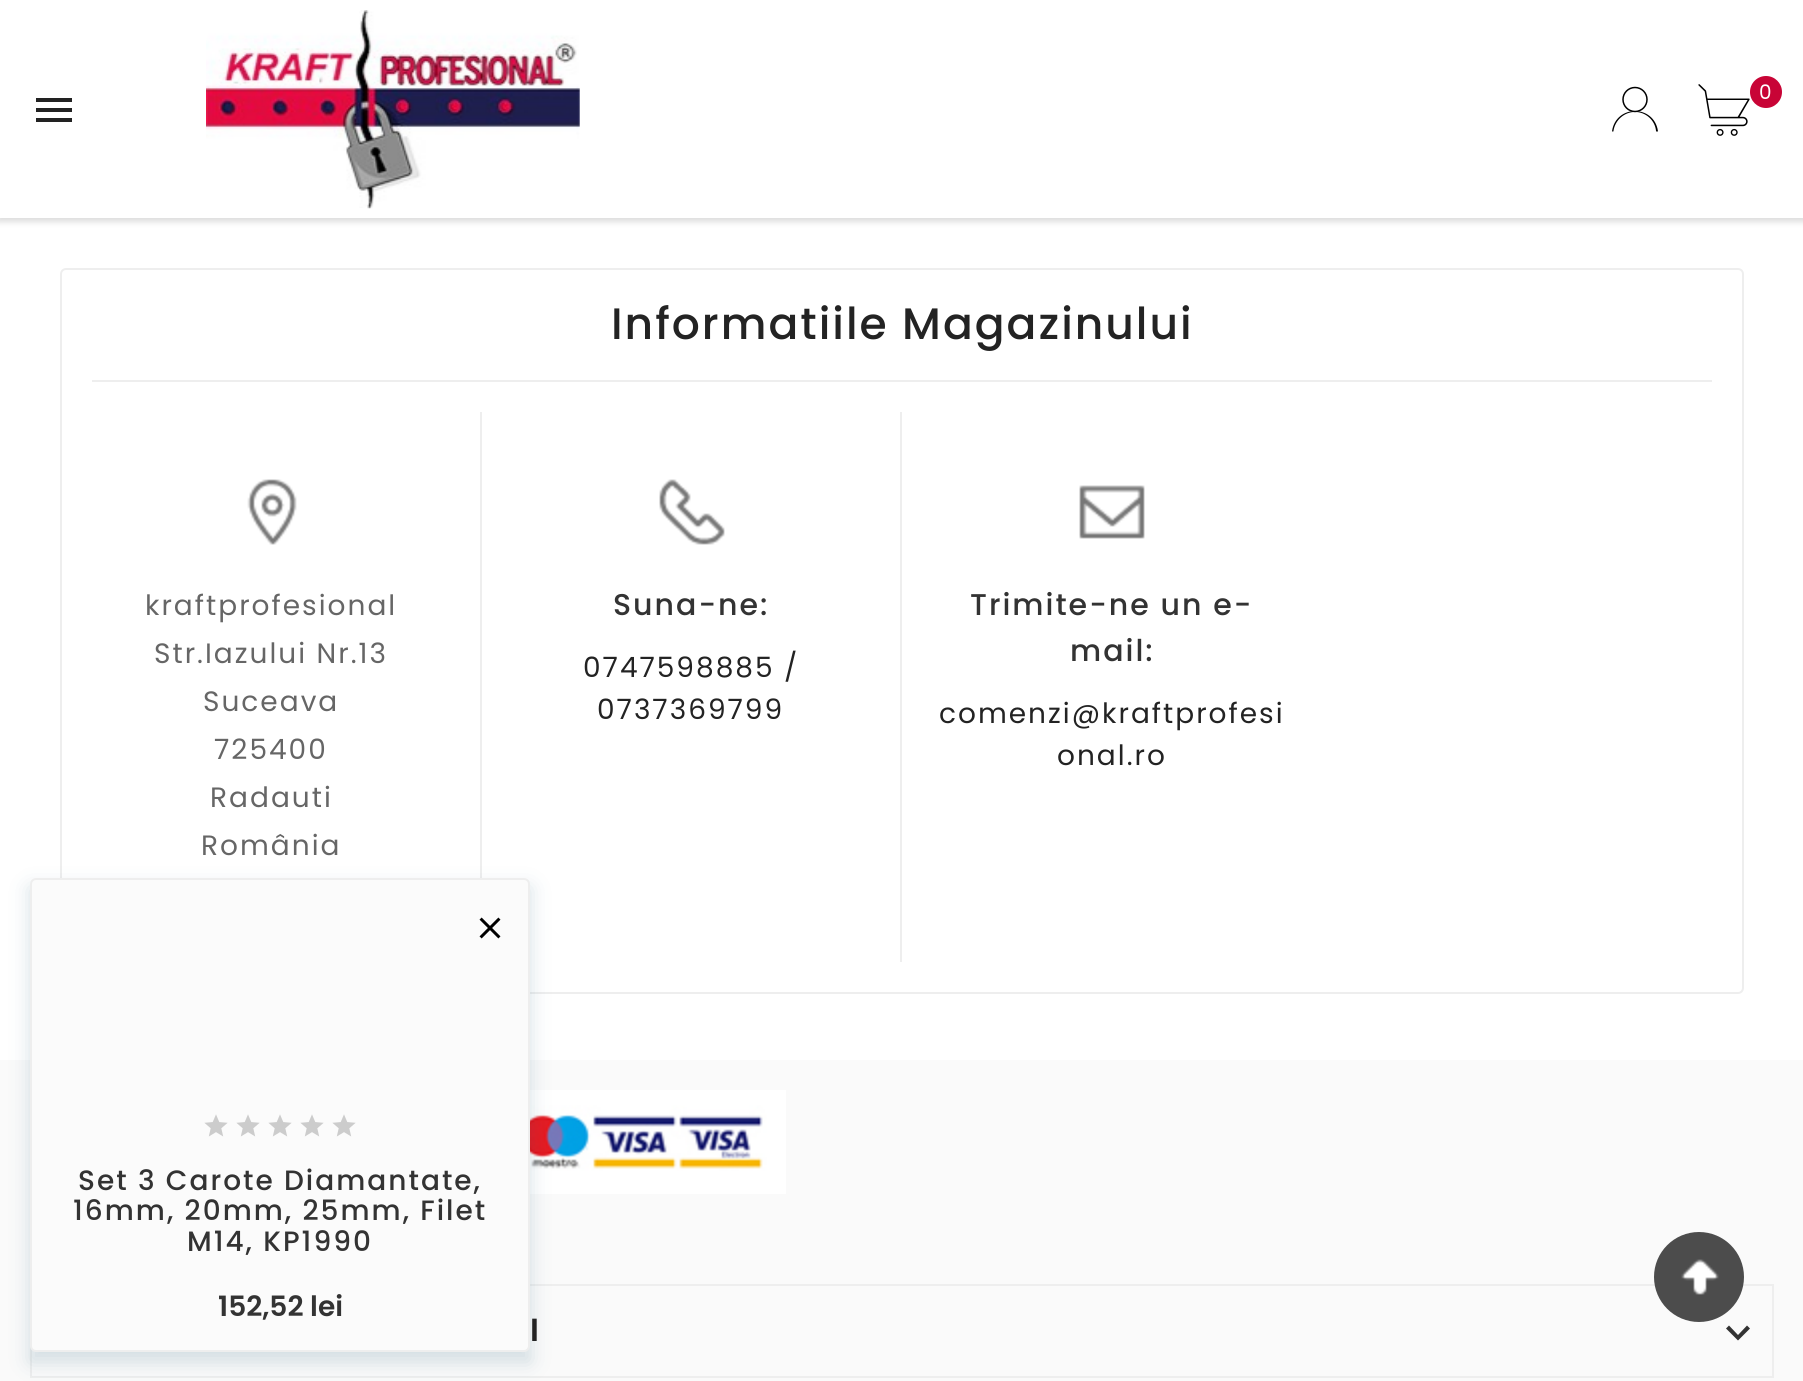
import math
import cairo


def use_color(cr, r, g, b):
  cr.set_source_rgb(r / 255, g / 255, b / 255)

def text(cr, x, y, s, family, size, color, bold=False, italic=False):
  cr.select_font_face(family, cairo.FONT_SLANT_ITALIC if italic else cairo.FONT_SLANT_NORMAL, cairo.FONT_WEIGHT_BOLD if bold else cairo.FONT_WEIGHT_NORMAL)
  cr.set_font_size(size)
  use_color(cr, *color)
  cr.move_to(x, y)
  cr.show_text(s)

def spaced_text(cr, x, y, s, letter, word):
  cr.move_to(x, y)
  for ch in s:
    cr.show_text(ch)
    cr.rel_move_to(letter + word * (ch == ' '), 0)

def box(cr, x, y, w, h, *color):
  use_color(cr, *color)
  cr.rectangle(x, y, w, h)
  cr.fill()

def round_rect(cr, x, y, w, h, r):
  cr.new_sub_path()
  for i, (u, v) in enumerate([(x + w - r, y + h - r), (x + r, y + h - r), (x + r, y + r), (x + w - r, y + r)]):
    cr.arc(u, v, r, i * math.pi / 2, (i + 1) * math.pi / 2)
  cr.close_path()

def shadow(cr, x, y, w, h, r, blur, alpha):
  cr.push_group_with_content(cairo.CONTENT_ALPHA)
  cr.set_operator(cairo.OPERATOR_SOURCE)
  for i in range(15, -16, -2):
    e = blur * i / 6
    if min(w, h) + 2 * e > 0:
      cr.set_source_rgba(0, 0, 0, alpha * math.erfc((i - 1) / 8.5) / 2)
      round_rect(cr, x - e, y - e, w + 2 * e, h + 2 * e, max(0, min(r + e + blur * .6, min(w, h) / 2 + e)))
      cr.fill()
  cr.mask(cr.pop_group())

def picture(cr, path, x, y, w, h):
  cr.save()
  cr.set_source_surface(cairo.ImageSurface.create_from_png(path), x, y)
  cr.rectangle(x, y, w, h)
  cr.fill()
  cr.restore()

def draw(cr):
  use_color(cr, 250, 250, 250)
  cr.paint()
  box(cr, 0, 218, 1803, 842, 255, 255, 255)
  use_color(cr, 128, 128, 128)
  shadow(cr, -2, 0, 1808, 222, 0, 3, 0.27)
  box(cr, 0, 0, 1803, 218, 255, 255, 255)
  picture(cr, "img_01.png", 206, 10, 374, 199)
  cr.new_path()
  cr.move_to(1635, 111.5)
  cr.curve_to(1646, 111.5, 1655.5, 120, 1656.5, 131)
  cr.line_to(1657.5, 131)
  cr.curve_to(1653.5, 105, 1616.5, 105, 1612.5, 131)
  cr.line_to(1613, 131)
  cr.curve_to(1614.5, 120, 1624, 111.5, 1635, 111.5)
  cr.close_path()
  use_color(cr, 0, 0, 0)
  cr.set_line_width(0.9)
  cr.stroke()
  cr.arc(1635, 99.5, 12, 0, 2 * math.pi)
  cr.set_line_width(1.5)
  cr.stroke()
  picture(cr, "img_02.png", 1698, 84, 52, 52)
  use_color(cr, 200, 4, 54)
  cr.arc(1766, 92, 16, 0, 2 * math.pi)
  cr.fill()
  use_color(cr, 34, 34, 34)
  cr.new_path()
  cr.move_to(36, 98)
  cr.line_to(72, 98)
  cr.line_to(72, 102)
  cr.line_to(36, 102)
  cr.close_path()
  cr.move_to(36, 112)
  cr.line_to(36, 108)
  cr.line_to(72, 108)
  cr.line_to(72, 112)
  cr.close_path()
  cr.move_to(36, 122)
  cr.line_to(36, 118)
  cr.line_to(72, 118)
  cr.line_to(72, 122)
  cr.close_path()
  cr.fill()
  round_rect(cr, 61, 269, 1682, 724, 5)
  use_color(cr, 238, 238, 238)
  cr.set_line_width(2)
  cr.stroke()
  box(cr, 92, 380, 1620, 2, 238, 238, 238)
  box(cr, 480, 412, 2, 466, 238, 238, 238)
  picture(cr, "img_03.png", 247, 479, 50, 66)
  box(cr, 900, 412, 2, 550, 238, 238, 238)
  picture(cr, "img_04.png", 659, 479, 66, 66)
  picture(cr, "img_05.png", 1079, 485, 66, 54)
  cr.rectangle(31, 1285, 1742, 92)
  cr.stroke()
  use_color(cr, 76, 76, 76)
  cr.arc(1699, 1277, 45, 0, 2 * math.pi)
  cr.fill()
  picture(cr, "img_06.png", 1681, 1259, 38, 36)
  picture(cr, "img_07.png", 530, 1090, 256, 104)
  use_color(cr, 51, 51, 51)
  cr.new_path()
  cr.move_to(1729, 1325.5)
  cr.line_to(1738, 1335)
  cr.line_to(1747, 1325.5)
  cr.line_to(1750, 1328.5)
  cr.line_to(1738, 1340.5)
  cr.line_to(1726, 1328.5)
  cr.close_path()
  cr.fill()
  use_color(cr, 23, 84, 116)
  shadow(cr, 30, 888, 500, 474, 0, 10, 0.18)
  use_color(cr, 251, 251, 251)
  round_rect(cr, 31, 879, 498, 472, 5)
  cr.fill_preserve()
  use_color(cr, 238, 238, 238)
  cr.stroke()
  picture(cr, "img_08.png", 479, 917, 22, 22)
  picture(cr, "img_09.png", 204, 1114, 24, 23)
  picture(cr, "img_09.png", 236, 1114, 24, 23)
  picture(cr, "img_09.png", 268, 1114, 24, 23)
  picture(cr, "img_09.png", 300, 1114, 24, 23)
  picture(cr, "img_09.png", 332, 1114, 24, 23)
  cr.select_font_face("Poppins")
  cr.set_font_size(20)
  use_color(cr, 255, 255, 255)
  spaced_text(cr, 1759, 99, "0", 2, 0)
  cr.select_font_face("Poppins Medium")
  cr.set_font_size(44)
  use_color(cr, 35, 35, 35)
  spaced_text(cr, 611, 339, "Informatiile Magazinului", 2, 0)
  cr.select_font_face("Poppins")
  cr.set_font_size(28)
  use_color(cr, 102, 102, 102)
  spaced_text(cr, 145, 615, "kraftprofesional", 2, 0)
  spaced_text(cr, 154, 663, "Str.Iazului Nr.13", 2, 0)
  spaced_text(cr, 203, 711, "Suceava", 2, 0)
  spaced_text(cr, 214, 759, "725400", 2, 0)
  spaced_text(cr, 210, 807, "Radauti", 2, 0)
  spaced_text(cr, 201, 855, "România", 2, 0)
  cr.select_font_face("Poppins Medium")
  cr.set_font_size(30)
  use_color(cr, 51, 51, 51)
  spaced_text(cr, 613, 615, "Suna-ne:", 2, 0)
  cr.select_font_face("Poppins")
  cr.set_font_size(28)
  use_color(cr, 35, 35, 35)
  spaced_text(cr, 583, 677, "0747598885 /", 2, 0)
  spaced_text(cr, 597, 719, "0737369799", 2, 0)
  cr.select_font_face("Poppins Medium")
  cr.set_font_size(30)
  use_color(cr, 51, 51, 51)
  spaced_text(cr, 970, 615, "Trimite-ne un e-", 2, 0)
  spaced_text(cr, 1070, 661, "mail:", 2, 0)
  cr.select_font_face("Poppins")
  cr.set_font_size(28)
  use_color(cr, 35, 35, 35)
  spaced_text(cr, 939, 723, "comenzi@kraftprofesi", 2, 0)
  spaced_text(cr, 1057, 765, "onal.ro", 2, 0)
  cr.select_font_face("Poppins SemiBold")
  cr.set_font_size(32)
  spaced_text(cr, 530, 1341, "I", 2, 0)
  cr.select_font_face("Poppins Medium")
  cr.set_font_size(28)
  use_color(cr, 51, 51, 51)
  spaced_text(cr, 78, 1190, "Set 3 Carote Diamantate,", 2, 0)
  spaced_text(cr, 73, 1220, "16mm, 20mm, 25mm, Filet", 2, 0)
  spaced_text(cr, 187, 1251, "M14, KP1990", 2, 0)
  text(cr, 218, 1316, "152,52 lei", "Poppins SemiBold", 28, (51, 51, 51))


surface = cairo.ImageSurface(cairo.FORMAT_RGB24, 1803, 1381)
cr = cairo.Context(surface)
options = cairo.FontOptions()
options.set_hint_metrics(cairo.HINT_METRICS_OFF)
options.set_hint_style(cairo.HINT_STYLE_NONE)
cr.set_font_options(options)
cr.set_miter_limit(4)
draw(cr)
surface.write_to_png("out.png")
